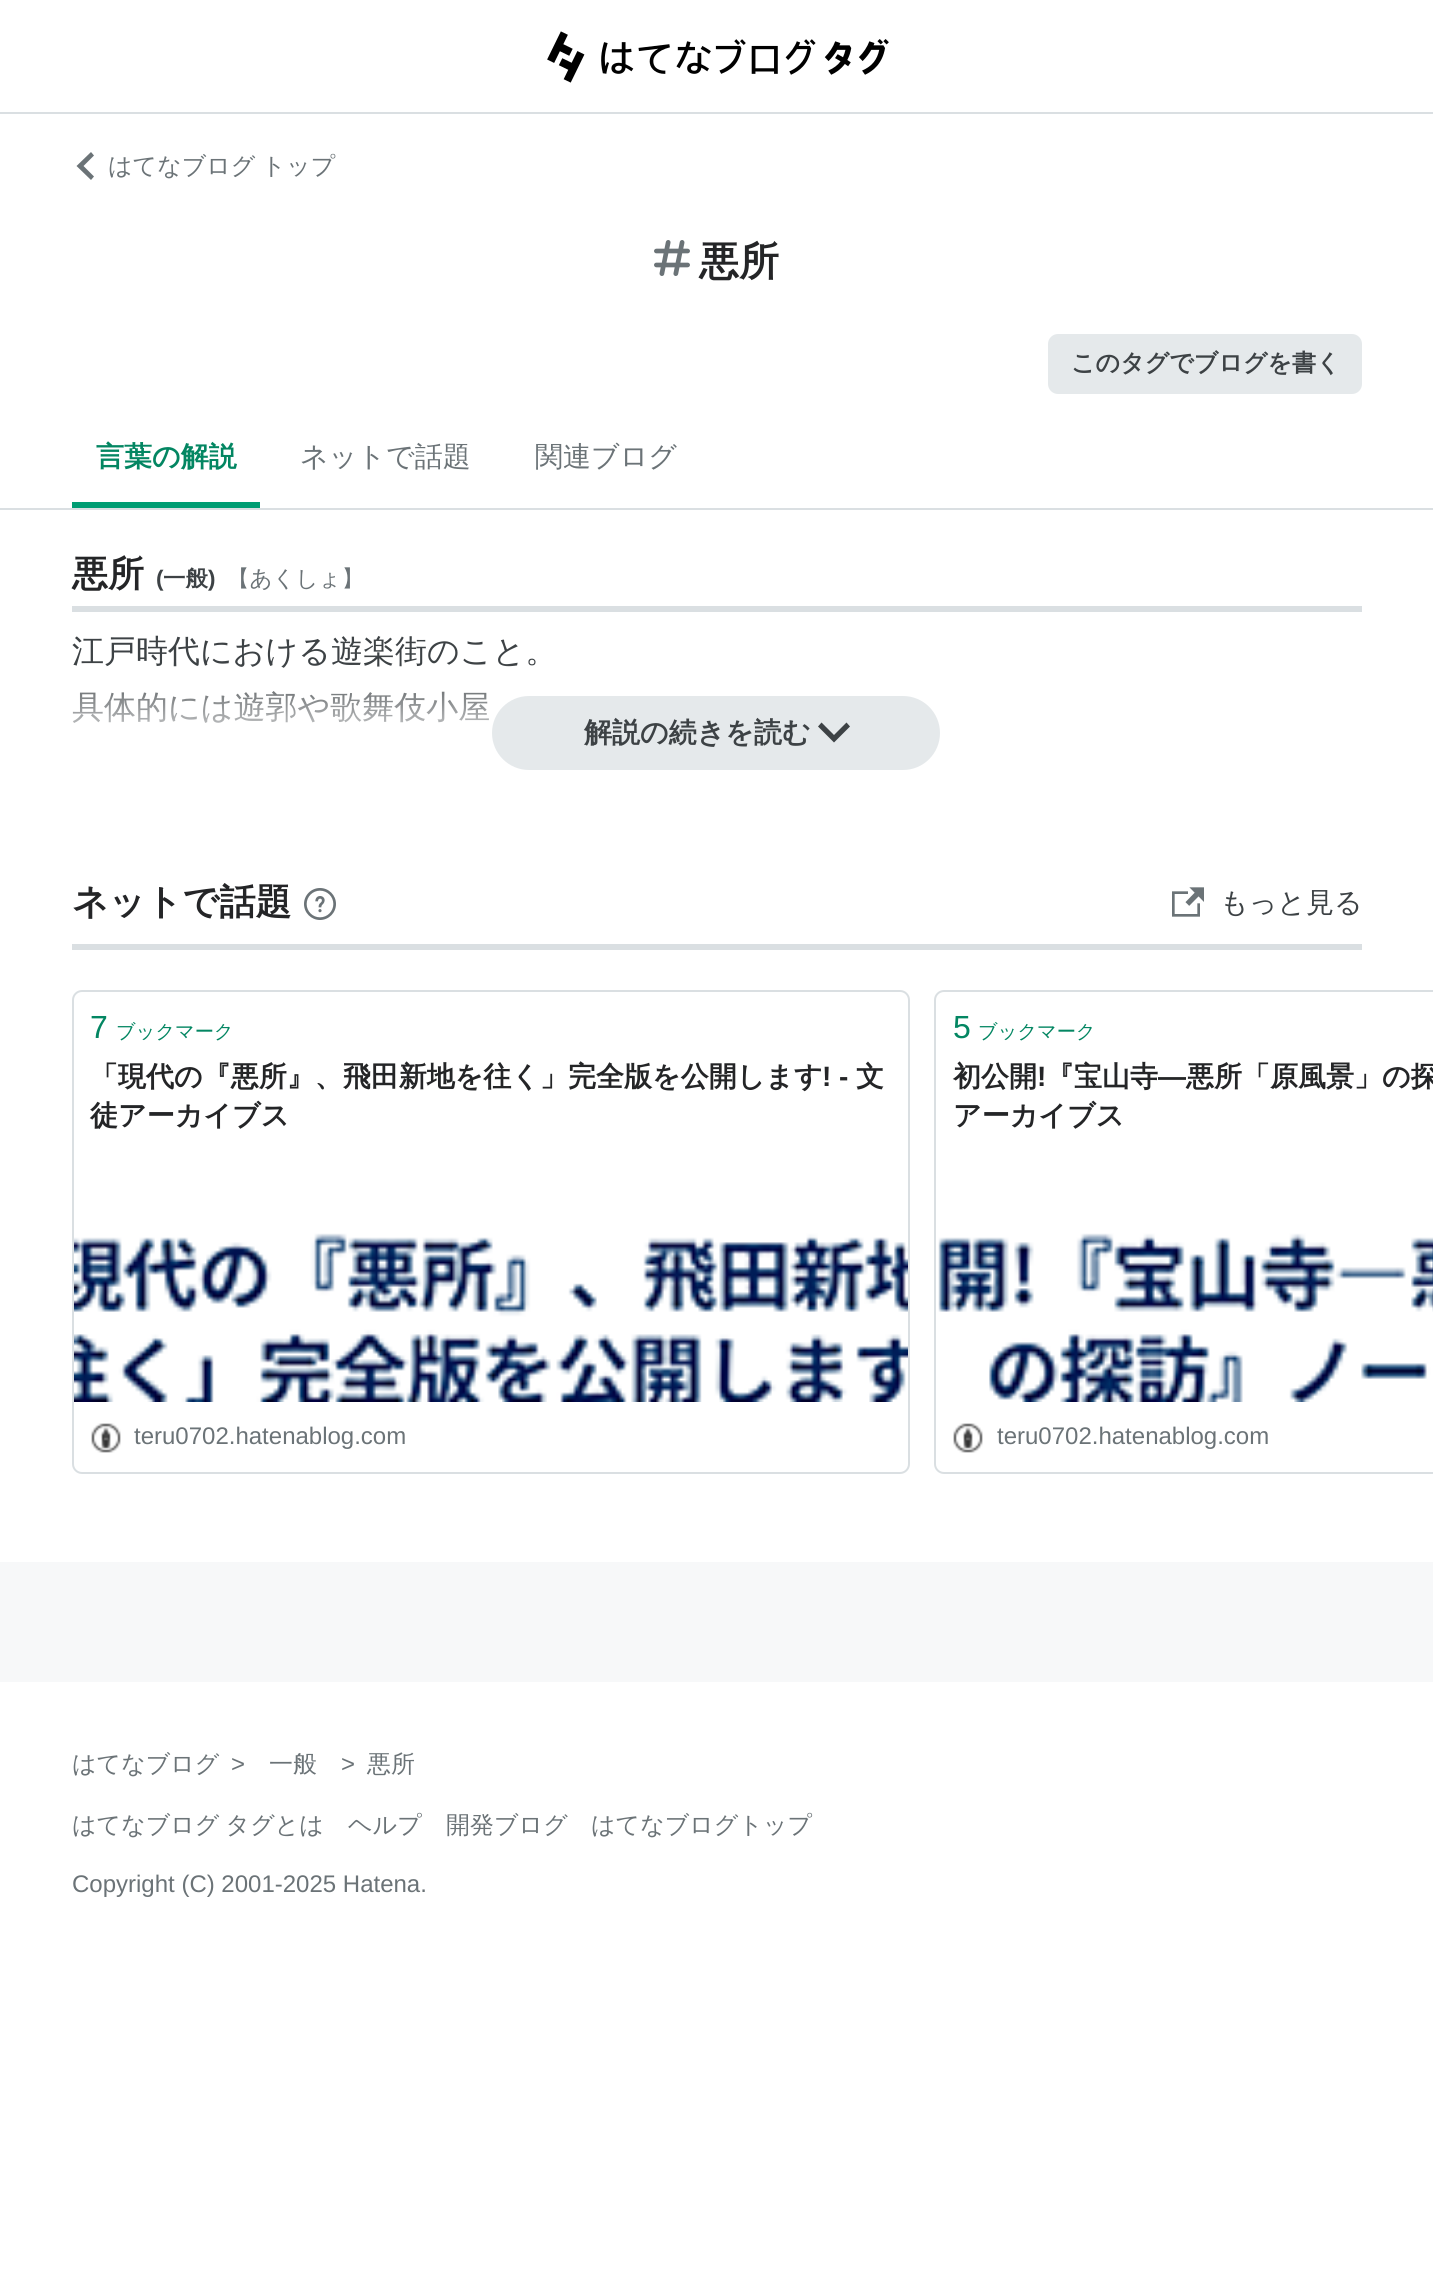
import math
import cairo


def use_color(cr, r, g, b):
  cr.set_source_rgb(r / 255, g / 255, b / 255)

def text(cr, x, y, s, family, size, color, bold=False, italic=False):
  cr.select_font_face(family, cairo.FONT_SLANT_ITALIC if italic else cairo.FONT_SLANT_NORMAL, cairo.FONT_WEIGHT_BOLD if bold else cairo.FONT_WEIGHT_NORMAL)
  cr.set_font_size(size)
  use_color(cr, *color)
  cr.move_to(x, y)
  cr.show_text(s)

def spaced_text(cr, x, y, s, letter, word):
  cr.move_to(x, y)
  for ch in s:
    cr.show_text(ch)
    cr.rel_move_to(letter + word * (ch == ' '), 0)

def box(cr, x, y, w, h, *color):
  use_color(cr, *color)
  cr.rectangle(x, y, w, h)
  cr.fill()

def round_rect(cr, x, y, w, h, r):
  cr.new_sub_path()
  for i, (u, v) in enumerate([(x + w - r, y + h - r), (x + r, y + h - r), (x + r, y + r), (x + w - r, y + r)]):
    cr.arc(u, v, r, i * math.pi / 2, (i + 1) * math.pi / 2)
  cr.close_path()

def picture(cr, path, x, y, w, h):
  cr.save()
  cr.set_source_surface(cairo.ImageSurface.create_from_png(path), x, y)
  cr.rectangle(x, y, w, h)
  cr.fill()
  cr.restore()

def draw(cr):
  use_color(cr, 255, 255, 255)
  cr.paint()
  box(cr, 0, 112, 1433, 2, 218, 223, 226)
  picture(cr, "img_01.png", 547, 31, 342, 52)
  use_color(cr, 107, 115, 119)
  cr.new_path()
  cr.move_to(91, 152)
  cr.line_to(94, 155.5)
  cr.line_to(83.5, 166)
  cr.line_to(94, 176.5)
  cr.line_to(91, 180)
  cr.line_to(76.5, 166)
  cr.close_path()
  cr.fill()
  picture(cr, "img_02.png", 654, 240, 36, 36)
  use_color(cr, 229, 233, 235)
  round_rect(cr, 1048, 334, 314, 60, 10)
  cr.fill()
  box(cr, 0, 508, 1433, 2, 218, 223, 226)
  box(cr, 72, 502, 188, 6, 0, 157, 115)
  box(cr, 72, 606, 1290, 6, 218, 223, 226)
  box(cr, 72, 944, 1290, 6, 218, 223, 226)
  picture(cr, "img_03.png", 304, 888, 32, 32)
  picture(cr, "img_04.png", 1172, 887, 32, 30)
  round_rect(cr, 73, 991, 836, 482, 9)
  cr.stroke()
  picture(cr, "img_05.png", 74, 1233, 834, 169)
  picture(cr, "img_06.png", 91, 1423, 30, 30)
  round_rect(cr, 935, 991, 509, 482, 9)
  cr.stroke()
  picture(cr, "img_07.png", 938, 1233, 495, 169)
  picture(cr, "img_06.png", 953, 1423, 30, 30)
  box(cr, 0, 1562, 1433, 120, 247, 248, 249)
  cr.select_font_face("WenQuanYi Zen Hei Medium")
  cr.set_font_size(24)
  use_color(cr, 107, 115, 119)
  spaced_text(cr, 108, 174, "はてなブログ トップ", 0, -1)
  text(cr, 699, 275, "悪所", "WenQuanYi Zen Hei", 40, (36, 37, 39), bold=True)
  text(cr, 1071, 371, "このタグでブログを書く", "WenQuanYi Zen Hei", 24, (61, 66, 69), bold=True)
  text(cr, 96, 466, "言葉の解説", "WenQuanYi Zen Hei", 28, (3, 134, 98), bold=True)
  text(cr, 300, 466, "ネットで話題", "WenQuanYi Zen Hei Medium", 28, (107, 115, 119))
  text(cr, 535, 466, "関連ブログ", "WenQuanYi Zen Hei Medium", 28, (107, 115, 119))
  text(cr, 72, 586, "悪所", "WenQuanYi Zen Hei", 36, (36, 37, 39), bold=True)
  text(cr, 156, 586, "(", "Liberation Sans", 22.5, (61, 66, 69), bold=True)
  text(cr, 163, 586, "一般", "WenQuanYi Zen Hei", 22.5, (61, 66, 69), bold=True)
  text(cr, 208, 586, ")", "Liberation Sans", 22.5, (61, 66, 69), bold=True)
  text(cr, 227, 586, "【あくしょ】", "WenQuanYi Zen Hei Medium", 22.5, (107, 115, 119))
  text(cr, 72, 662, "江戸時代における遊楽街のこと。", "WenQuanYi Zen Hei Medium", 32, (61, 66, 69))
  text(cr, 72, 718, "具体的には遊郭や歌舞伎小屋", "WenQuanYi Zen Hei Medium", 32, (61, 66, 69))
  gradient = cairo.LinearGradient(717, 760, 717, 550)
  gradient.add_color_stop_rgba(0, 1, 1, 1, 1)
  gradient.add_color_stop_rgba(0.46, 1, 1, 1, 0)
  cr.set_source(gradient)
  cr.rectangle(72, 665, 444, 58)
  cr.fill()
  use_color(cr, 229, 233, 235)
  round_rect(cr, 492, 696, 448, 74, 37)
  cr.fill()
  text(cr, 584, 742, "解説の続きを読む", "WenQuanYi Zen Hei", 28, (61, 66, 69), bold=True)
  cr.new_path()
  cr.move_to(818, 726.5)
  cr.line_to(821.5, 722.5)
  cr.line_to(834, 735)
  cr.line_to(846.5, 722.5)
  cr.line_to(850, 726.5)
  cr.line_to(834, 742.5)
  cr.close_path()
  cr.fill()
  text(cr, 72, 914, "ネットで話題", "WenQuanYi Zen Hei", 36, (36, 37, 39), bold=True)
  text(cr, 1220, 912, "もっと見る", "WenQuanYi Zen Hei Medium", 28, (61, 66, 69))
  text(cr, 90, 1038, "7", "Liberation Sans", 32, (3, 134, 98))
  text(cr, 116, 1038, "ブックマーク", "WenQuanYi Zen Hei Medium", 19.25, (3, 134, 98))
  text(cr, 90, 1086, "「現代の『悪所』、飛田新地を往く」完全版を公開します", "WenQuanYi Zen Hei", 28, (36, 37, 39), bold=True)
  text(cr, 822, 1086, "! -", "Liberation Sans", 28, (36, 37, 39), bold=True)
  text(cr, 856, 1086, "文", "WenQuanYi Zen Hei", 28, (36, 37, 39), bold=True)
  text(cr, 90, 1125, "徒アーカイブス", "WenQuanYi Zen Hei", 28, (36, 37, 39), bold=True)
  text(cr, 134, 1444, "teru0702.hatenablog.com", "Liberation Sans", 24, (107, 115, 119))
  text(cr, 953, 1038, "5", "Liberation Sans", 32, (3, 134, 98))
  text(cr, 978, 1038, "ブックマーク", "WenQuanYi Zen Hei Medium", 19.25, (3, 134, 98))
  text(cr, 953, 1086, "初公開", "WenQuanYi Zen Hei", 28, (36, 37, 39), bold=True)
  text(cr, 1037, 1086, "!", "Liberation Sans", 28, (36, 37, 39), bold=True)
  text(cr, 1046, 1086, "『宝山寺", "WenQuanYi Zen Hei", 28, (36, 37, 39), bold=True)
  text(cr, 1158, 1086, "―", "Liberation Sans", 28, (36, 37, 39), bold=True)
  text(cr, 1186, 1086, "悪所「原風景」の探", "WenQuanYi Zen Hei", 28, (36, 37, 39), bold=True)
  text(cr, 953, 1125, "アーカイブス", "WenQuanYi Zen Hei", 28, (36, 37, 39), bold=True)
  text(cr, 997, 1444, "teru0702.hatenablog.com", "Liberation Sans", 24, (107, 115, 119))
  text(cr, 72, 1772, "はてなブログ", "WenQuanYi Zen Hei Medium", 24, (107, 115, 119))
  text(cr, 231, 1772, ">", "Liberation Sans", 24, (107, 115, 119))
  text(cr, 269, 1772, "一般", "WenQuanYi Zen Hei Medium", 24, (107, 115, 119))
  text(cr, 341, 1772, ">", "Liberation Sans", 24, (107, 115, 119))
  text(cr, 367, 1772, "悪所", "WenQuanYi Zen Hei Medium", 24, (107, 115, 119))
  spaced_text(cr, 72, 1833, "はてなブログ タグとは", 0, -1)
  text(cr, 348, 1833, "ヘルプ", "WenQuanYi Zen Hei Medium", 24, (107, 115, 119))
  text(cr, 446, 1833, "開発ブログ", "WenQuanYi Zen Hei Medium", 24, (107, 115, 119))
  text(cr, 591, 1833, "はてなブログトップ", "WenQuanYi Zen Hei Medium", 24, (107, 115, 119))
  text(cr, 72, 1892, "Copyright (C) 2001-2025 Hatena.", "Liberation Sans", 24, (107, 115, 119))


surface = cairo.ImageSurface(cairo.FORMAT_RGB24, 1433, 2279)
cr = cairo.Context(surface)
options = cairo.FontOptions()
options.set_hint_metrics(cairo.HINT_METRICS_OFF)
options.set_hint_style(cairo.HINT_STYLE_NONE)
cr.set_font_options(options)
cr.set_miter_limit(4)
draw(cr)
surface.write_to_png("out.png")
